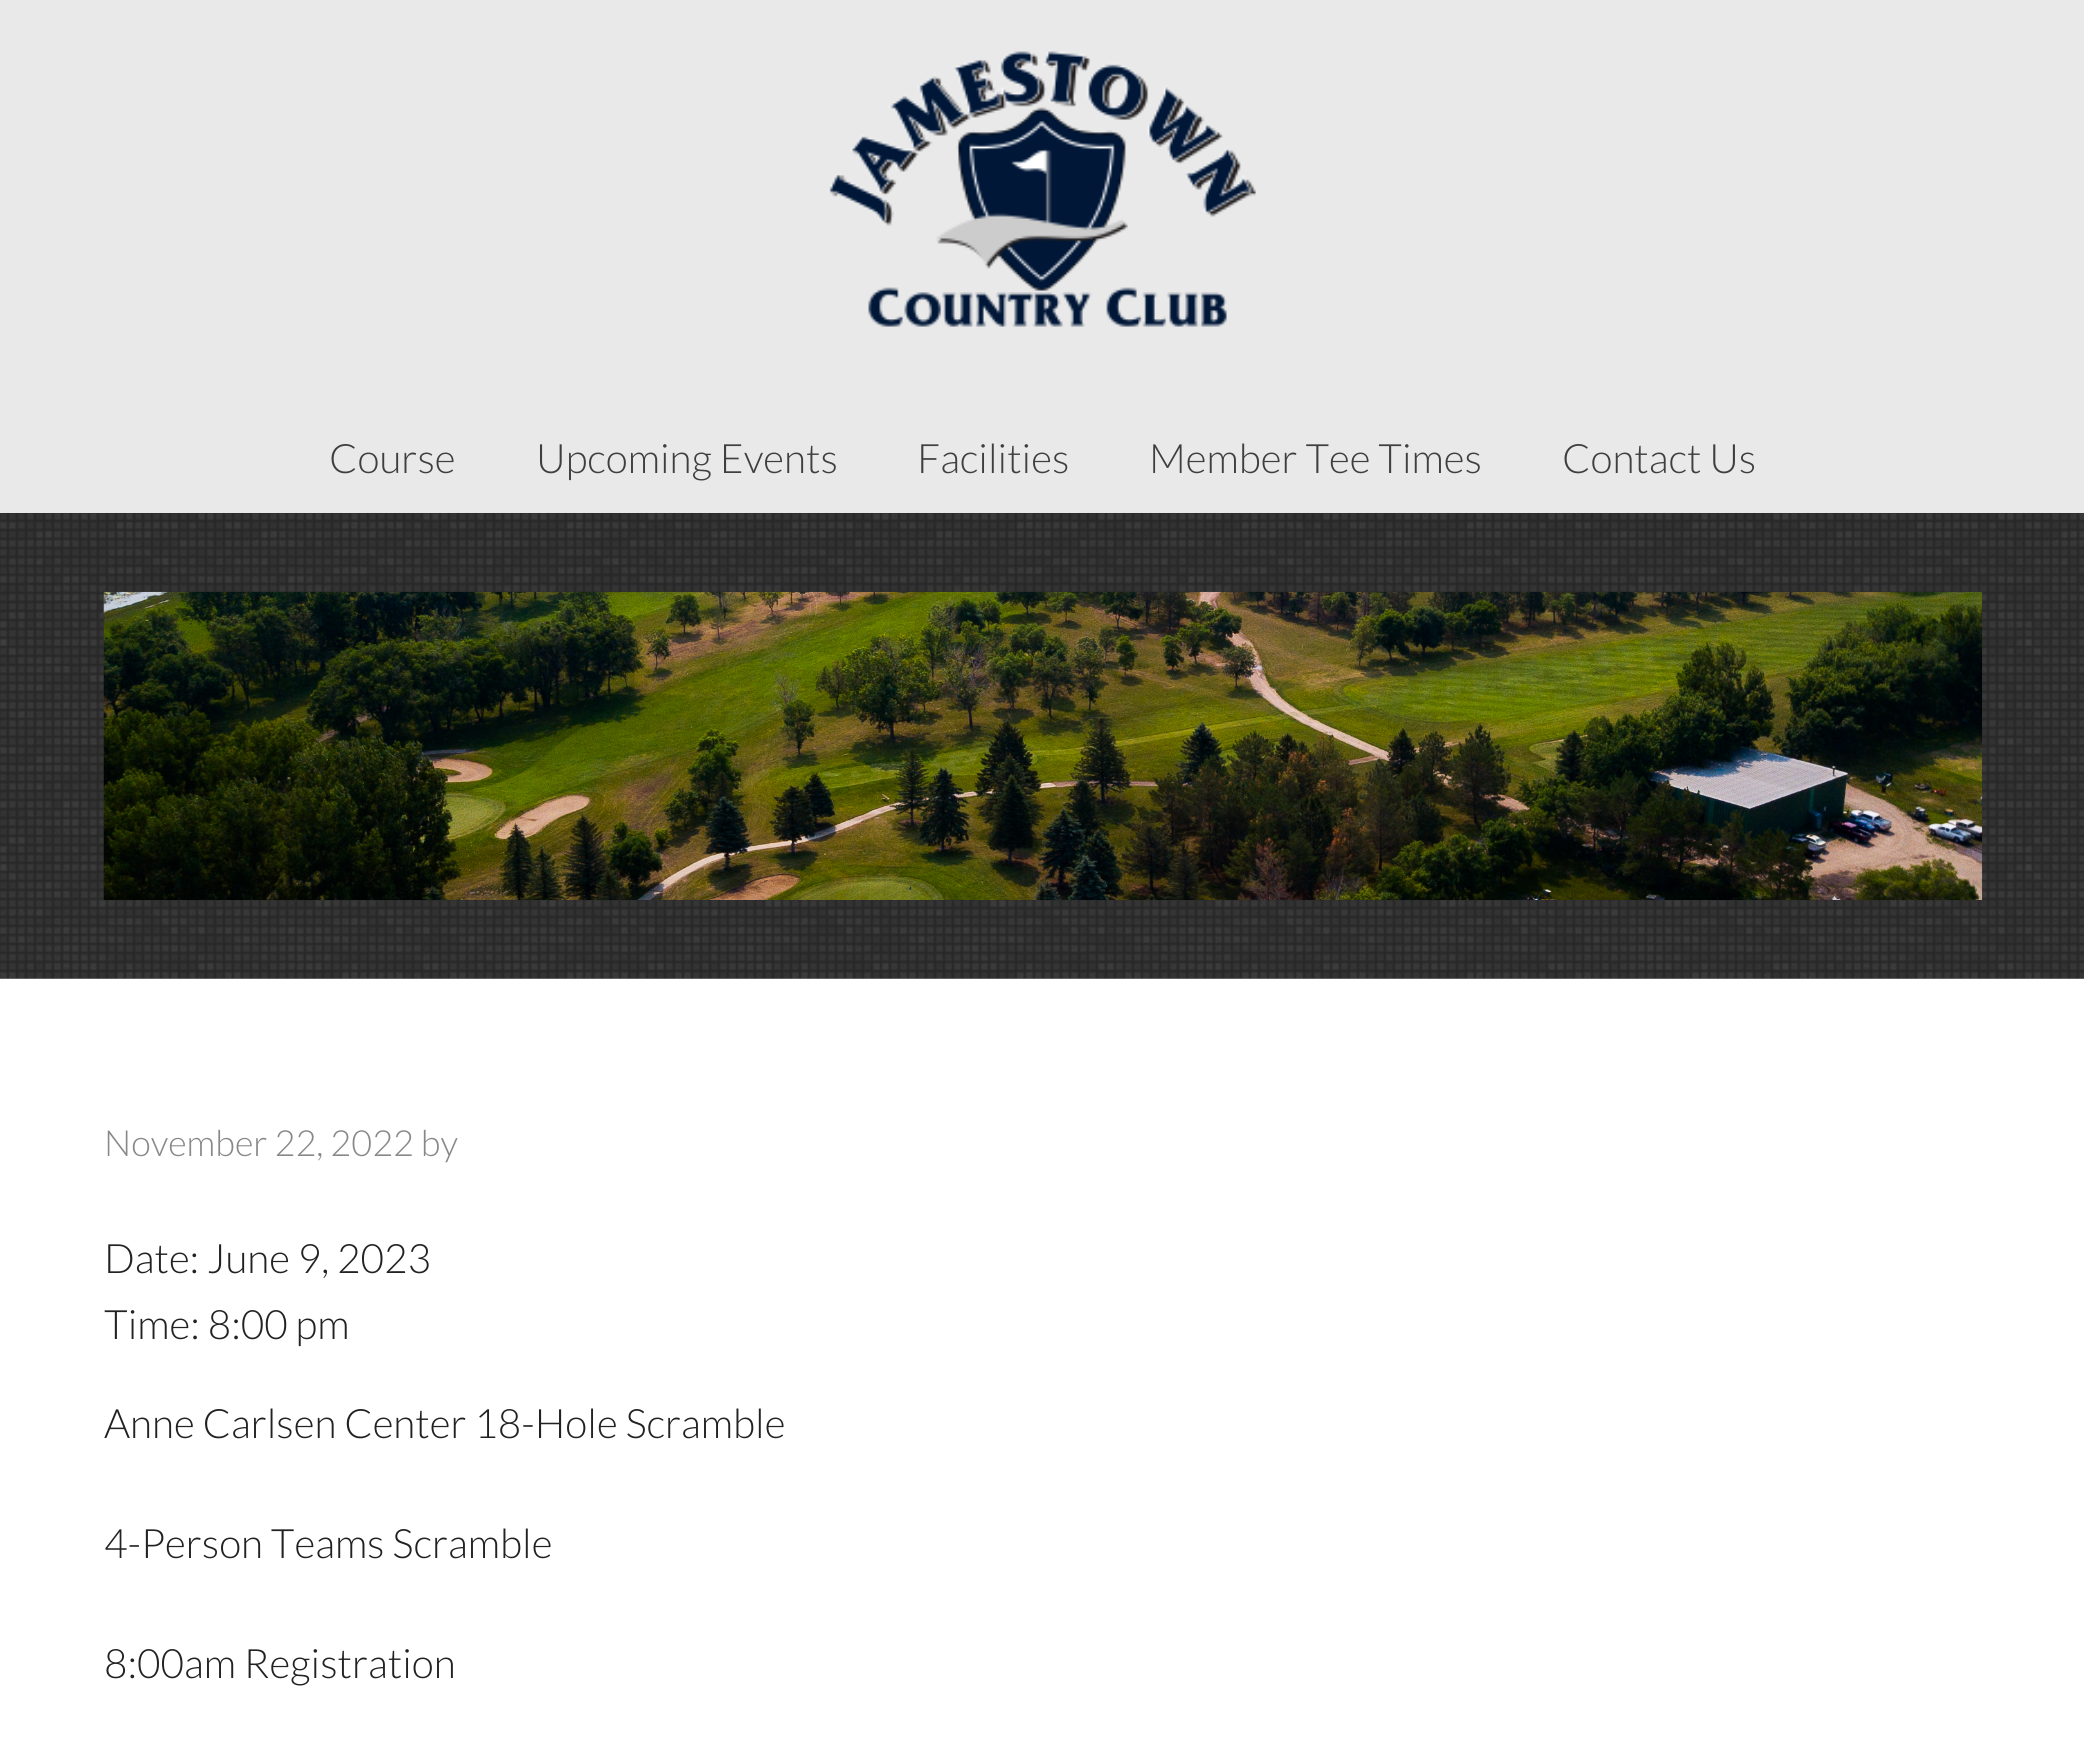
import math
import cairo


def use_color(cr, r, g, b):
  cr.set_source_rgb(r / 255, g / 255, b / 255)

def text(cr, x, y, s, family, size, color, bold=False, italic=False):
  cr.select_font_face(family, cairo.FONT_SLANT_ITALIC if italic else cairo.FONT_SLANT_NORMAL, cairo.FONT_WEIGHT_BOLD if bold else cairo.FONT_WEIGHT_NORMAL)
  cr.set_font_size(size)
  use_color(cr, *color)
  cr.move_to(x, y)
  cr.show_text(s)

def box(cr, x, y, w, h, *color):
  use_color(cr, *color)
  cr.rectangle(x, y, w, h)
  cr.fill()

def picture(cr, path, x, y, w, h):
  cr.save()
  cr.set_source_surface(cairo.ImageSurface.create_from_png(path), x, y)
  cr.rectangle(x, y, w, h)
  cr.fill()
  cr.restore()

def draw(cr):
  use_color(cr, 255, 255, 255)
  cr.paint()
  box(cr, 0, 0, 2084, 513, 233, 233, 233)
  picture(cr, "img_01.png", 828, 50, 428, 277)
  picture(cr, "img_02.png", 0, 513, 2084, 466)
  picture(cr, "img_03.png", 103, 591, 1880, 309)
  text(cr, 329, 473, "Course", "Lato Light", 40.5, (63, 63, 64))
  text(cr, 536, 473, "Upcoming Events", "Lato Light", 40.5, (63, 63, 64))
  text(cr, 917, 473, "Facilities", "Lato Light", 40.5, (63, 63, 64))
  text(cr, 1149, 473, "Member Tee Times", "Lato Light", 40.5, (63, 63, 64))
  text(cr, 1562, 473, "Contact Us", "Lato Light", 40.5, (63, 63, 64))
  text(cr, 104, 1156, "November 22, 2022 by", "Lato Light", 36, (136, 136, 136))
  text(cr, 104, 1273, "Date: June 9, 2023", "Lato Light", 40.5, (34, 34, 34))
  text(cr, 104, 1339, "Time: 8:00 pm", "Lato Light", 40.5, (34, 34, 34))
  text(cr, 104, 1438, "Anne Carlsen Center 18-Hole Scramble", "Lato Light", 40.5, (34, 34, 34))
  text(cr, 104, 1558, "4-Person Teams Scramble", "Lato Light", 40.5, (34, 34, 34))
  text(cr, 104, 1678, "8:00am Registration", "Lato Light", 40.5, (34, 34, 34))


surface = cairo.ImageSurface(cairo.FORMAT_RGB24, 2084, 1744)
cr = cairo.Context(surface)
options = cairo.FontOptions()
options.set_hint_metrics(cairo.HINT_METRICS_OFF)
options.set_hint_style(cairo.HINT_STYLE_NONE)
cr.set_font_options(options)
cr.set_miter_limit(4)
draw(cr)
surface.write_to_png("out.png")
